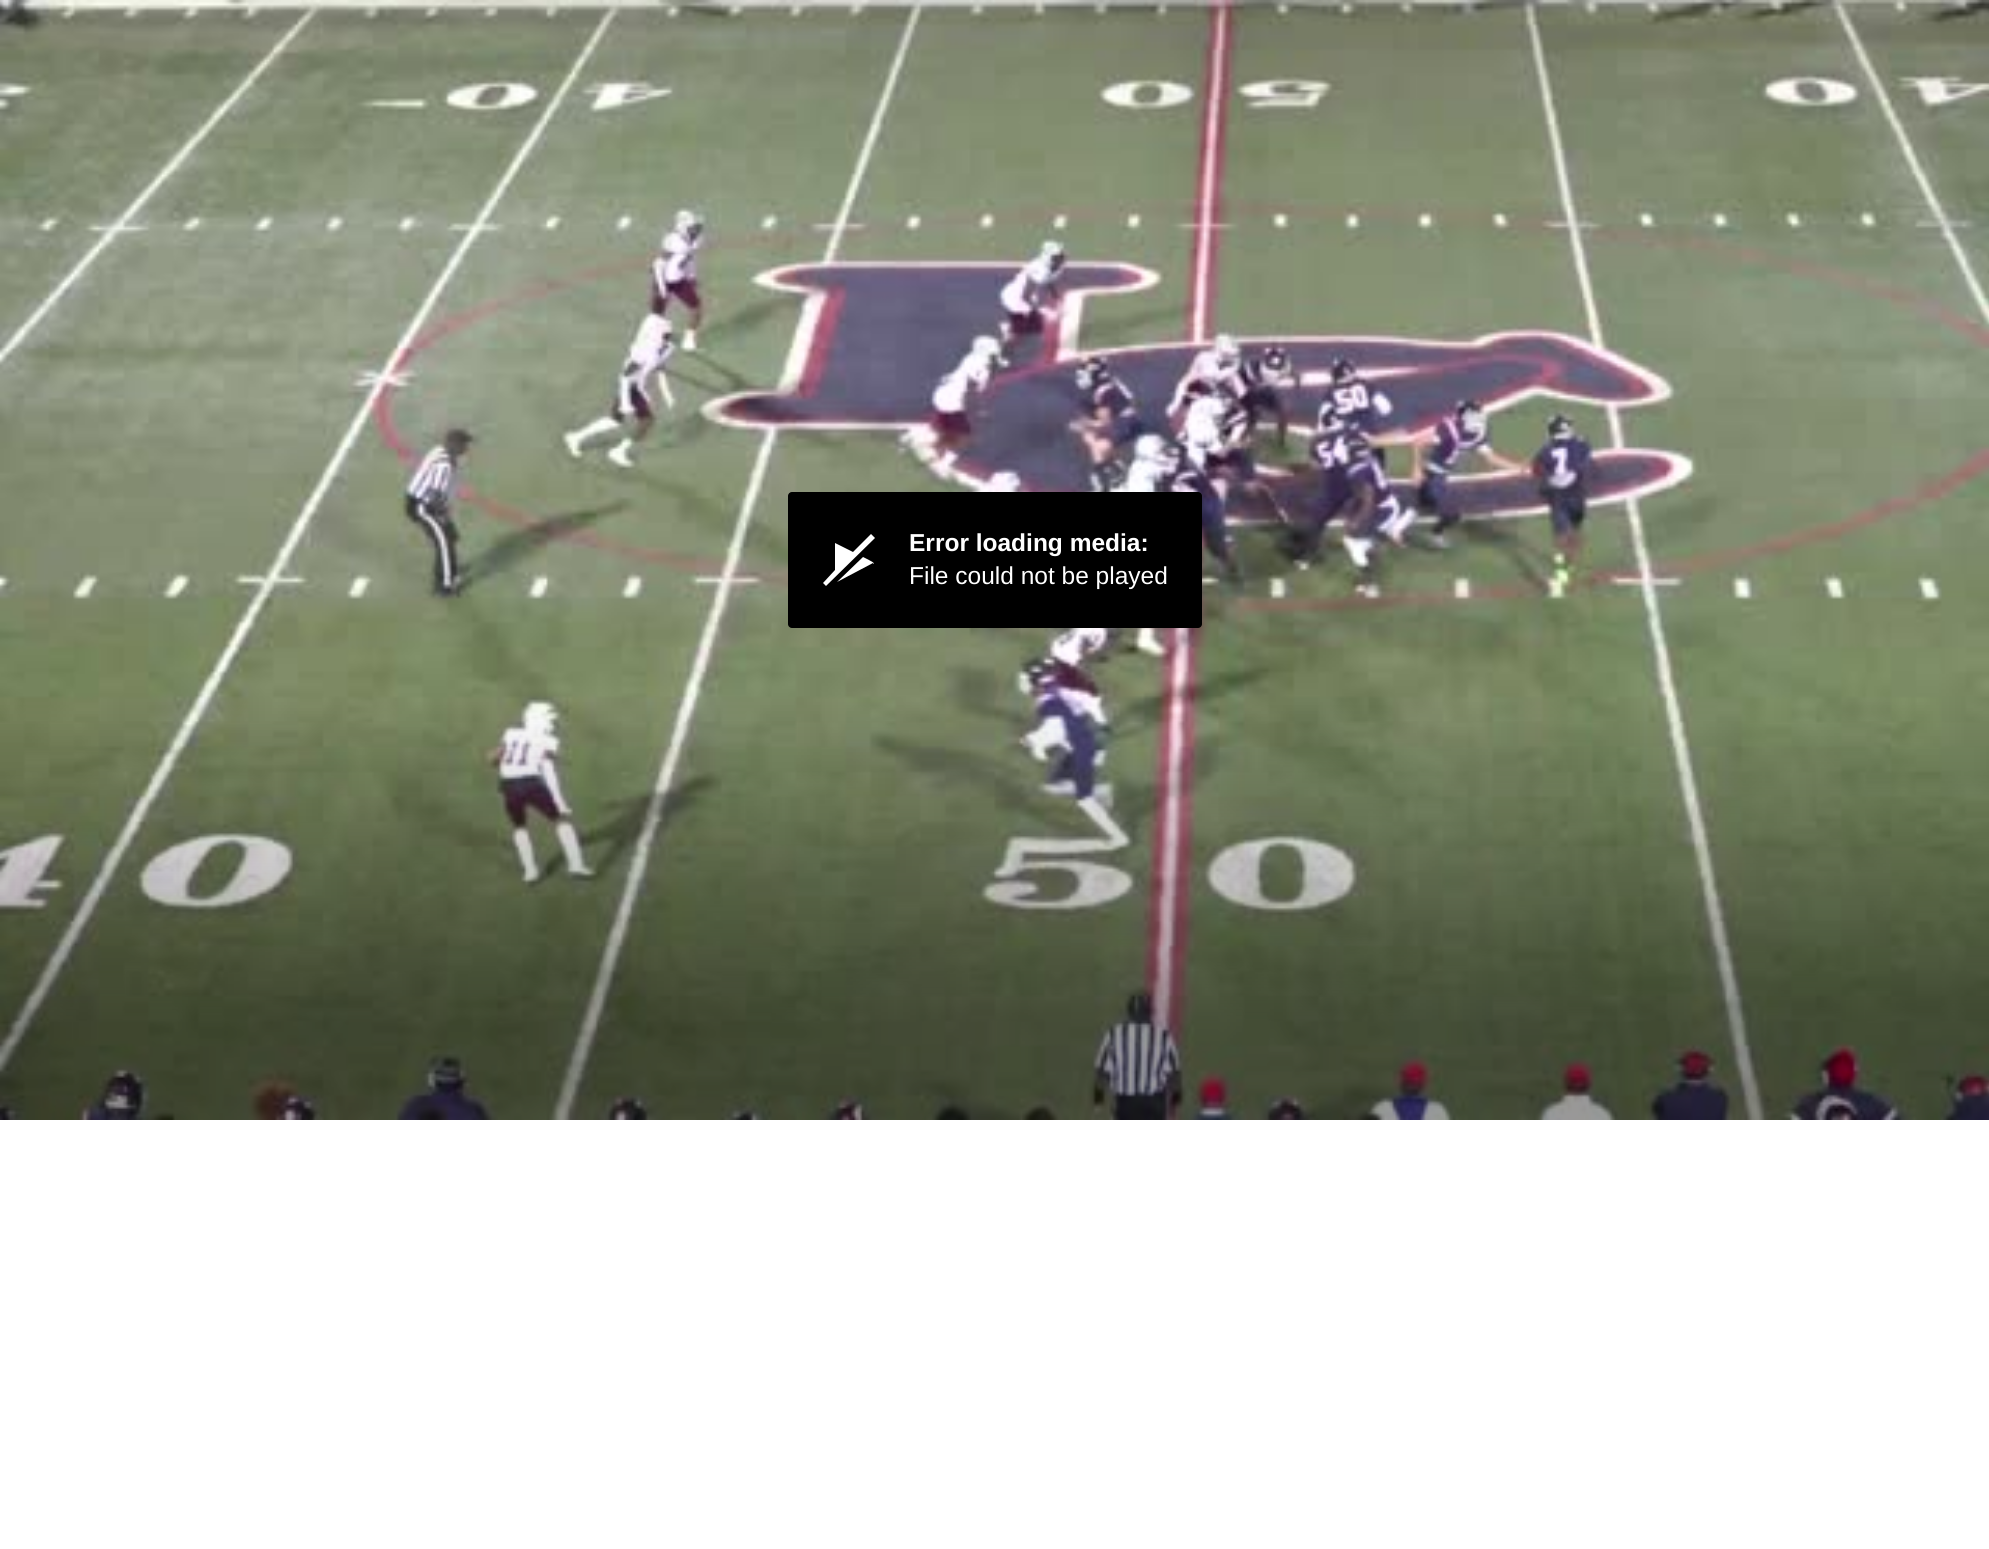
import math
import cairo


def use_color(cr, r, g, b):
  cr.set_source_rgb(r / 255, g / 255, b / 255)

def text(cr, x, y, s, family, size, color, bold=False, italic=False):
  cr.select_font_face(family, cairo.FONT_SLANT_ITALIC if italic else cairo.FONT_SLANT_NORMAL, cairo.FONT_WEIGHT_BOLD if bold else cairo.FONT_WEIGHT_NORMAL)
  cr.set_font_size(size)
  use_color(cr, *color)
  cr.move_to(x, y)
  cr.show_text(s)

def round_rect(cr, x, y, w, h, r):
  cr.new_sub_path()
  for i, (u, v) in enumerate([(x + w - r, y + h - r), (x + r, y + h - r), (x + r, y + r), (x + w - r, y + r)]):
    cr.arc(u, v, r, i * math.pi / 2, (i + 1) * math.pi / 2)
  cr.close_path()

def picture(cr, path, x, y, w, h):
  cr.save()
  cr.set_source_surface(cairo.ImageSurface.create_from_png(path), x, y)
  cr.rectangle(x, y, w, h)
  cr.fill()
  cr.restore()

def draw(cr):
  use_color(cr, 255, 255, 255)
  cr.paint()
  picture(cr, "img_01.png", 0, 0, 1989, 1120)
  use_color(cr, 0, 0, 0)
  round_rect(cr, 788, 492, 414, 136, 4)
  cr.fill()
  use_color(cr, 255, 255, 255)
  cr.new_path()
  cr.move_to(873, 563)
  cr.line_to(837, 582)
  cr.line_to(863, 557)
  cr.curve_to(873, 562, 875, 563, 873, 564)
  cr.close_path()
  cr.move_to(871, 534)
  cr.line_to(853, 552)
  cr.line_to(835, 543)
  cr.line_to(835, 570)
  cr.line_to(823, 583)
  cr.line_to(826, 586)
  cr.line_to(875, 538)
  cr.close_path()
  cr.fill()
  text(cr, 909, 551, "Error loading media:", "Liberation Sans", 24.5, (255, 255, 255), bold=True)
  text(cr, 909, 584, "File could not be played", "Liberation Sans", 24.5, (255, 255, 255))


surface = cairo.ImageSurface(cairo.FORMAT_RGB24, 1989, 1549)
cr = cairo.Context(surface)
options = cairo.FontOptions()
options.set_hint_metrics(cairo.HINT_METRICS_OFF)
options.set_hint_style(cairo.HINT_STYLE_NONE)
cr.set_font_options(options)
cr.set_miter_limit(4)
draw(cr)
surface.write_to_png("out.png")
